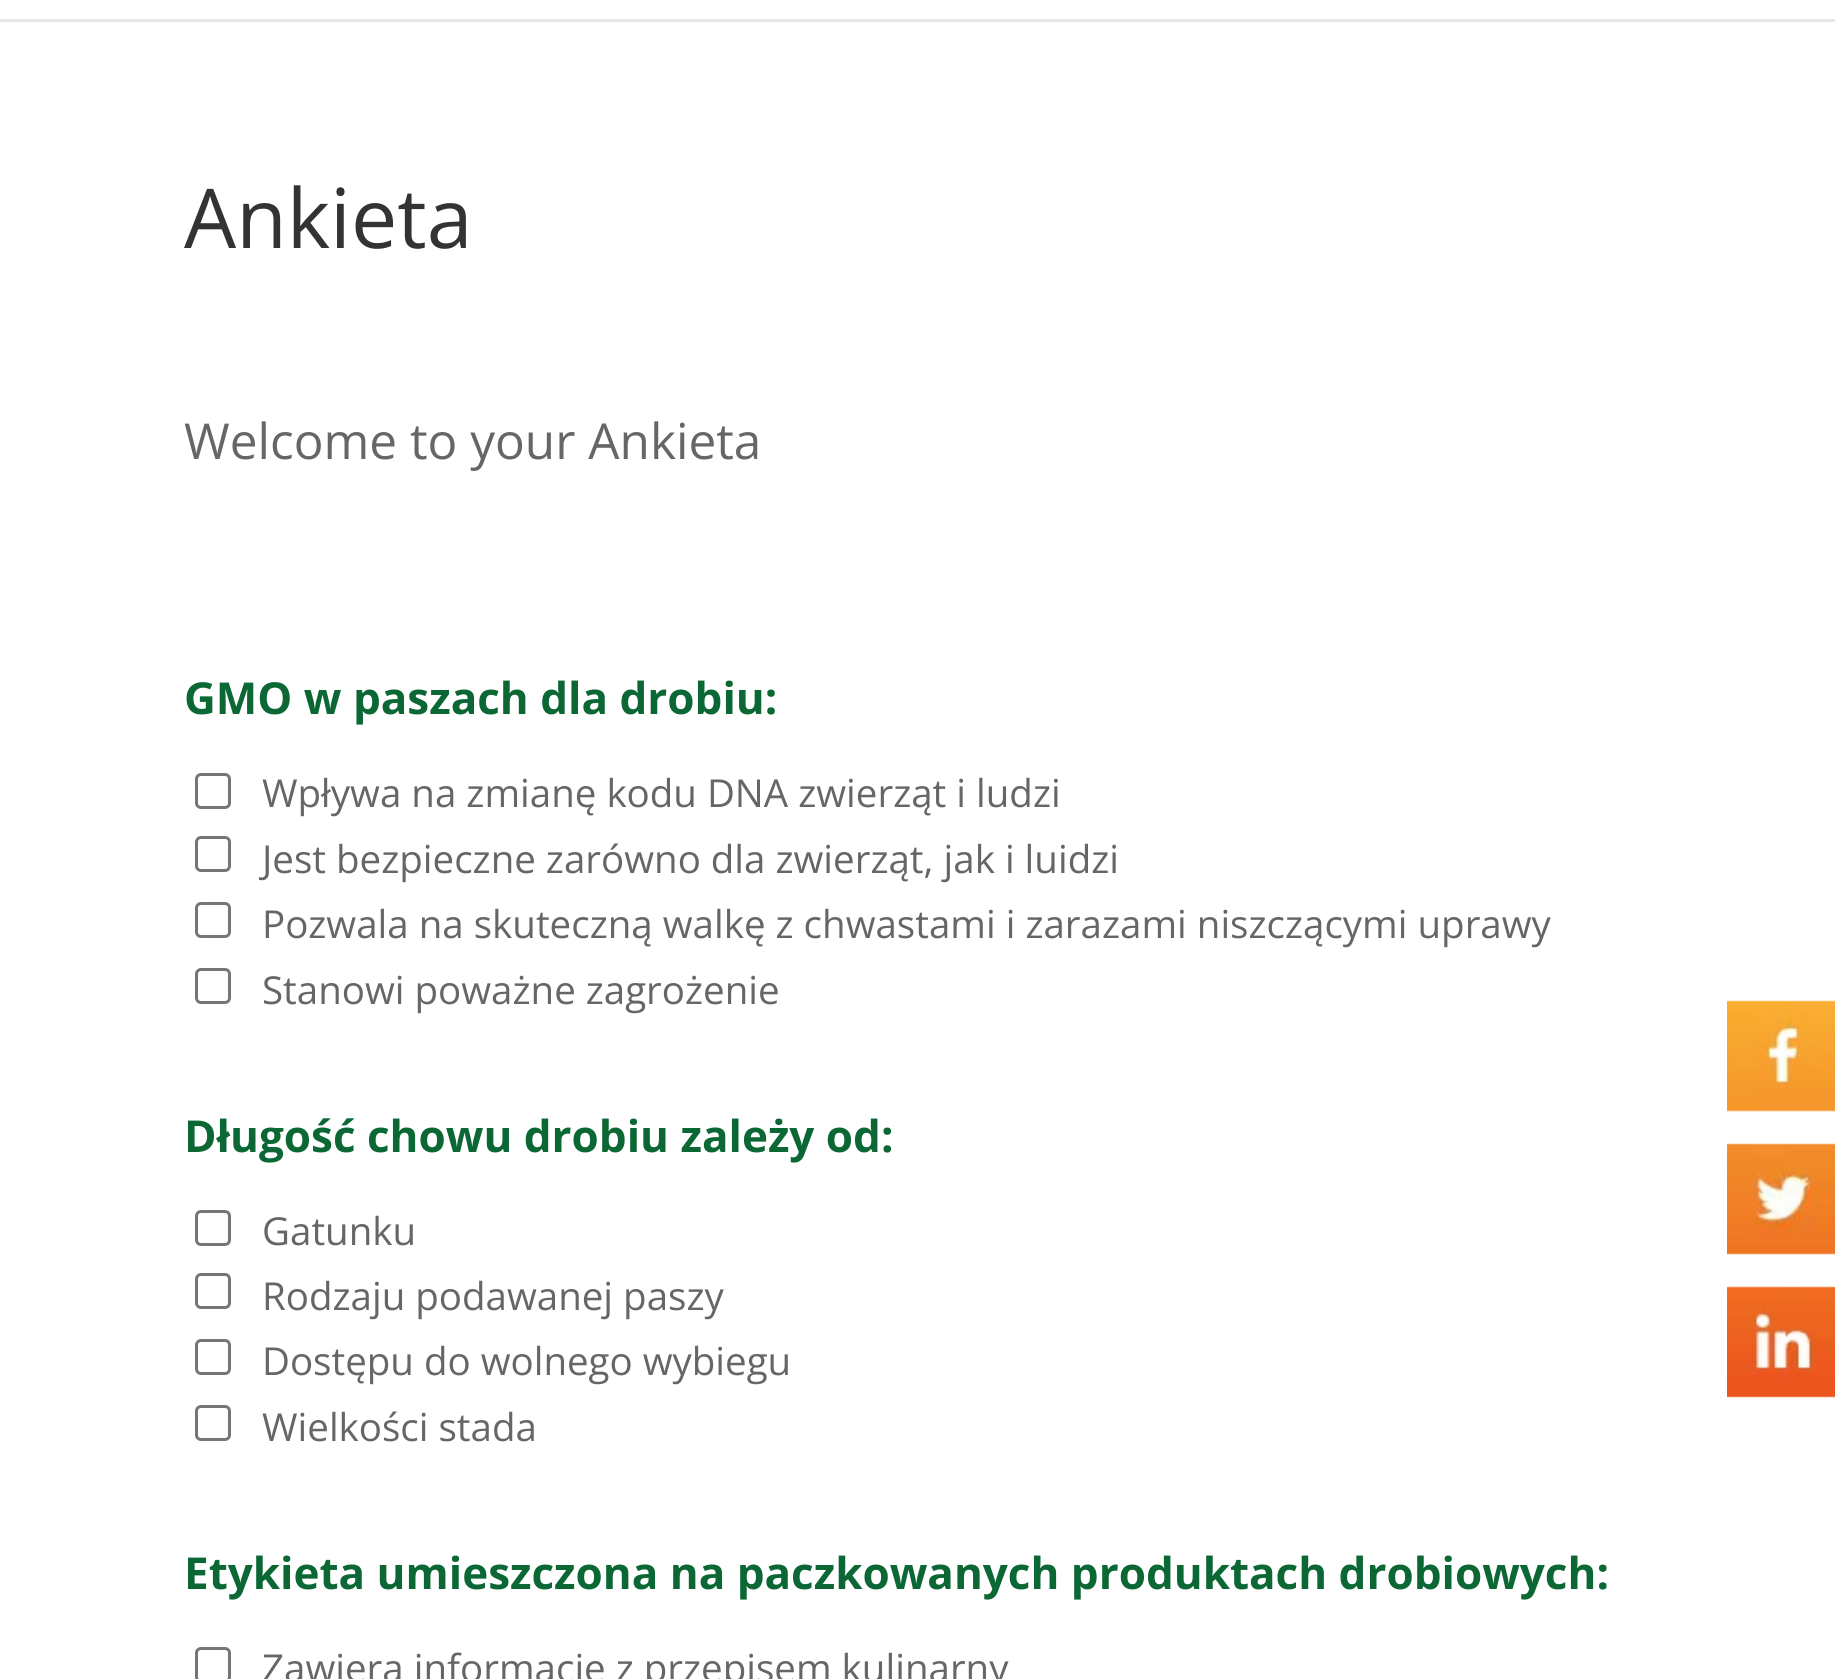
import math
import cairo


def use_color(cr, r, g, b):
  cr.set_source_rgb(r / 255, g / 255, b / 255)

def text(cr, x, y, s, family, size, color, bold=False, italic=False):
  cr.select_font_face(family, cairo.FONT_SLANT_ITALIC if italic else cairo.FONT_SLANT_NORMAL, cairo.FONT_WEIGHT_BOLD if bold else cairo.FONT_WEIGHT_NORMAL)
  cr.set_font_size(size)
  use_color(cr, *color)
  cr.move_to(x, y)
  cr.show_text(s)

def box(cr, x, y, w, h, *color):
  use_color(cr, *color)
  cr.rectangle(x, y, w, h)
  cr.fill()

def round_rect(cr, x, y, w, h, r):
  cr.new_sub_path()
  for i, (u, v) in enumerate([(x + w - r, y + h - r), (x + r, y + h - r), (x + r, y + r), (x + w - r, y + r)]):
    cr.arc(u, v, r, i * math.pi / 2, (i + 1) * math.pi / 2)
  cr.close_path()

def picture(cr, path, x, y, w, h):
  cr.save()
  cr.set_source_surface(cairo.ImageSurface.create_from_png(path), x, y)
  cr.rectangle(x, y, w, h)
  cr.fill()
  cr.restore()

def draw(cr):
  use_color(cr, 255, 255, 255)
  cr.paint()
  box(cr, 0, 19, 1835, 3, 230, 230, 230)
  round_rect(cr, 196.5, 774.5, 33, 33, 4.5)
  use_color(cr, 118, 118, 118)
  cr.set_line_width(3)
  cr.stroke()
  round_rect(cr, 196.5, 837.5, 33, 33, 4.5)
  cr.stroke()
  round_rect(cr, 196.5, 903.5, 33, 33, 4.5)
  cr.stroke()
  round_rect(cr, 196.5, 969.5, 33, 33, 4.5)
  cr.stroke()
  round_rect(cr, 196.5, 1211.5, 33, 33, 4.5)
  cr.stroke()
  round_rect(cr, 196.5, 1274.5, 33, 33, 4.5)
  cr.stroke()
  round_rect(cr, 196.5, 1340.5, 33, 33, 4.5)
  cr.stroke()
  round_rect(cr, 196.5, 1406.5, 33, 33, 4.5)
  cr.stroke()
  round_rect(cr, 196.5, 1648.5, 33, 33, 4.5)
  cr.stroke()
  picture(cr, "img_01.png", 1727, 1000, 108, 112)
  picture(cr, "img_02.png", 1727, 1143, 108, 112)
  picture(cr, "img_03.png", 1727, 1286, 108, 112)
  text(cr, 184, 248, "Ankieta", "Open Sans", 82.5, (51, 51, 51))
  text(cr, 184, 459, "Welcome to your Ankieta", "Open Sans", 49.5, (102, 102, 102))
  text(cr, 184, 714, "GMO w paszach dla drobiu:", "Open Sans", 44, (11, 104, 52), bold=True)
  text(cr, 262, 807, "Wpływa na zmianę kodu DNA zwierząt i ludzi", "Open Sans", 38.5, (102, 102, 102))
  text(cr, 262, 873, "Jest bezpieczne zarówno dla zwierząt, jak i luidzi", "Open Sans", 38.5, (102, 102, 102))
  text(cr, 262, 938, "Pozwala na skuteczną walkę z chwastami i zarazami niszczącymi uprawy", "Open Sans", 38.5, (102, 102, 102))
  text(cr, 262, 1004, "Stanowi poważne zagrożenie", "Open Sans", 38.5, (102, 102, 102))
  text(cr, 184, 1152, "Długość chowu drobiu zależy od:", "Open Sans", 44, (11, 104, 52), bold=True)
  text(cr, 262, 1245, "Gatunku", "Open Sans", 38.5, (102, 102, 102))
  text(cr, 262, 1310, "Rodzaju podawanej paszy", "Open Sans", 38.5, (102, 102, 102))
  text(cr, 262, 1375, "Dostępu do wolnego wybiegu", "Open Sans", 38.5, (102, 102, 102))
  text(cr, 262, 1441, "Wielkości stada", "Open Sans", 38.5, (102, 102, 102))
  text(cr, 184, 1589, "Etykieta umieszczona na paczkowanych produktach drobiowych:", "Open Sans", 44, (11, 104, 52), bold=True)
  text(cr, 262, 1682, "Zawiera informacje z przepisem kulinarny", "Open Sans", 38.5, (102, 102, 102))


surface = cairo.ImageSurface(cairo.FORMAT_RGB24, 1835, 1679)
cr = cairo.Context(surface)
options = cairo.FontOptions()
options.set_hint_metrics(cairo.HINT_METRICS_OFF)
options.set_hint_style(cairo.HINT_STYLE_NONE)
cr.set_font_options(options)
cr.set_miter_limit(4)
draw(cr)
surface.write_to_png("out.png")
